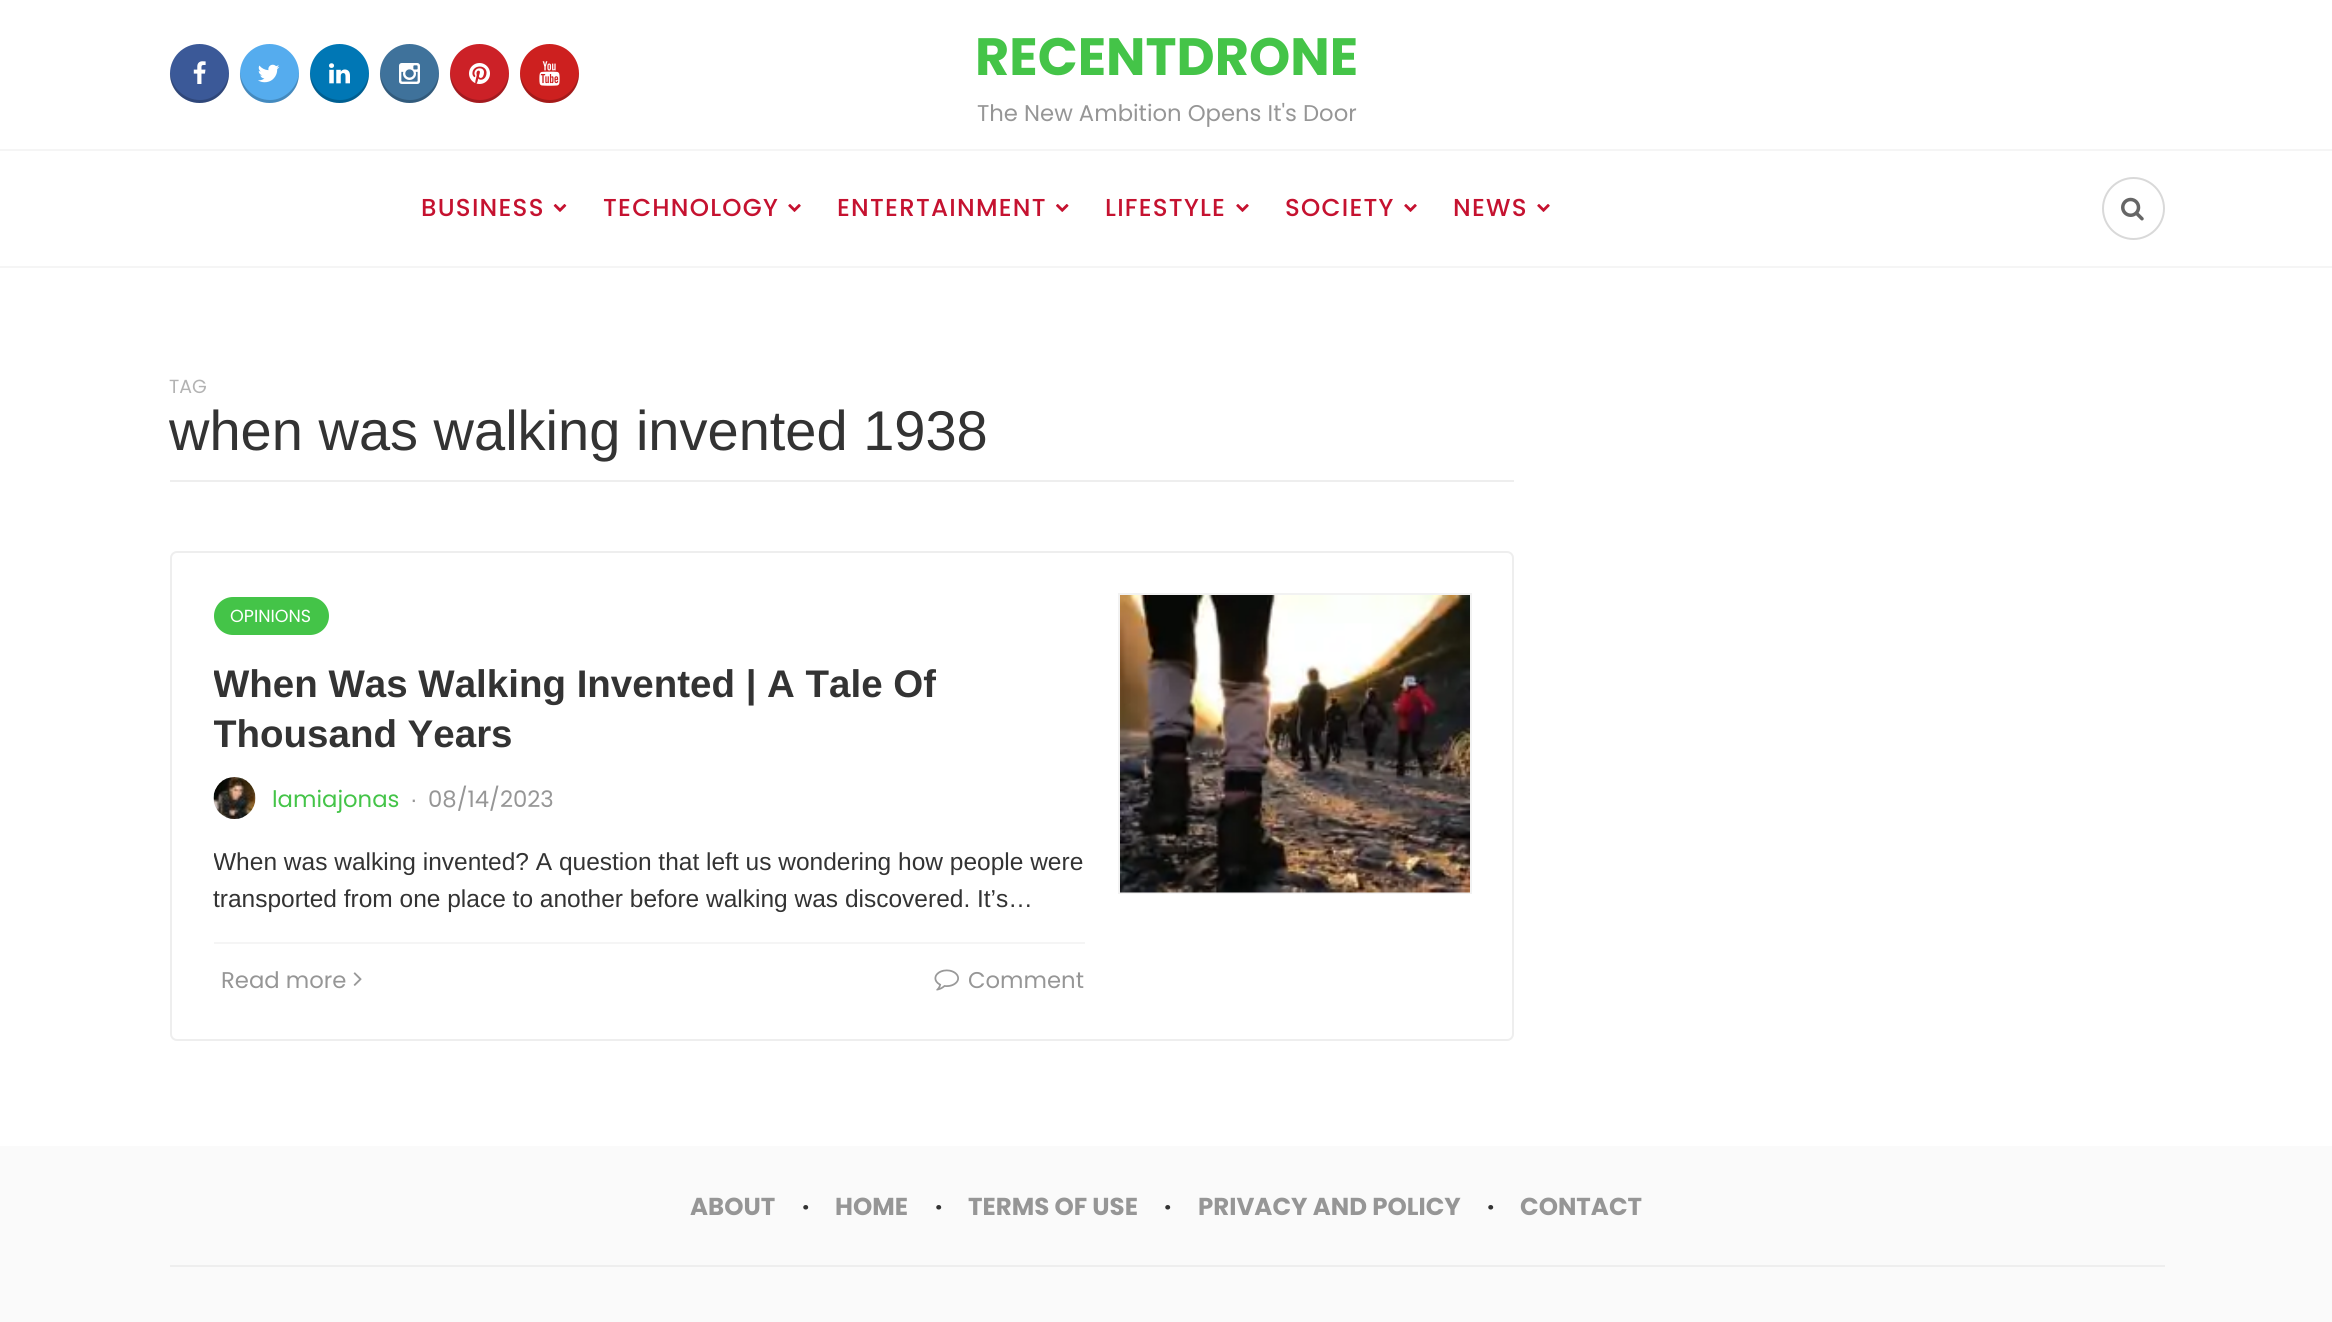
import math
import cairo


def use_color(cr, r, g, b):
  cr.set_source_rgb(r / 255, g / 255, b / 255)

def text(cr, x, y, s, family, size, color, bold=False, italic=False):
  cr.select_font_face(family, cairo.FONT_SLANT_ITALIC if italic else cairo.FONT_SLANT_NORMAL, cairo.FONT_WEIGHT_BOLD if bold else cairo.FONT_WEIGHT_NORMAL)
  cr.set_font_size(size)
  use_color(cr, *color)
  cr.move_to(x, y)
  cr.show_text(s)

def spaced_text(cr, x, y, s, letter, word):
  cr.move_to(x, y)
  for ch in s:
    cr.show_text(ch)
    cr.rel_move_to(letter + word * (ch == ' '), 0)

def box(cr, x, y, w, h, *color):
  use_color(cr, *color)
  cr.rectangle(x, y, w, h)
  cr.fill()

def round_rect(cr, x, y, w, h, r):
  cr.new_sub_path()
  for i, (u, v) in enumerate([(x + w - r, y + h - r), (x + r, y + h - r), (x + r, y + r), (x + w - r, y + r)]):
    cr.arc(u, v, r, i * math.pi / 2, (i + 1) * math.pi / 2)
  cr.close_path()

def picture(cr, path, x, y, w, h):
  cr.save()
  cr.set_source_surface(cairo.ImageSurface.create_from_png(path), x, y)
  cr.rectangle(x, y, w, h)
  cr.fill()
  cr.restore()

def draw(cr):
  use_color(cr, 255, 255, 255)
  cr.paint()
  use_color(cr, 59, 89, 152)
  cr.arc(199.5, 73.5, 29.5, 0, 2 * math.pi)
  cr.fill()
  cr.set_source_rgba(0, 0, 0, 0.2)
  cr.new_path()
  cr.move_to(229, 72)
  cr.curve_to(228, 87, 215, 100, 200, 100)
  cr.curve_to(184, 100, 171, 87, 170, 72)
  cr.curve_to(168, 101, 207, 115, 224, 90)
  cr.curve_to(228, 85, 229, 78, 229, 72)
  cr.close_path()
  cr.fill()
  picture(cr, "img_01.png", 193, 61, 13, 23)
  use_color(cr, 85, 172, 238)
  cr.arc(269.5, 73.5, 29.5, 0, 2 * math.pi)
  cr.fill()
  cr.set_source_rgba(0, 0, 0, 0.2)
  cr.new_path()
  cr.move_to(299, 72)
  cr.curve_to(298, 87, 285, 100, 270, 100)
  cr.curve_to(254, 100, 241, 87, 240, 72)
  cr.curve_to(238, 101, 277, 115, 294, 90)
  cr.curve_to(298, 85, 299, 78, 299, 72)
  cr.close_path()
  cr.fill()
  picture(cr, "img_02.png", 258, 64, 22, 19)
  use_color(cr, 0, 119, 181)
  cr.arc(339.5, 73.5, 29.5, 0, 2 * math.pi)
  cr.fill()
  cr.set_source_rgba(0, 0, 0, 0.2)
  cr.new_path()
  cr.move_to(369, 72)
  cr.curve_to(368, 87, 355, 100, 340, 100)
  cr.curve_to(324, 100, 311, 87, 310, 72)
  cr.curve_to(308, 101, 347, 115, 364, 90)
  cr.curve_to(368, 85, 369, 78, 369, 72)
  cr.close_path()
  cr.fill()
  picture(cr, "img_03.png", 329, 63, 21, 21)
  use_color(cr, 63, 114, 155)
  cr.arc(409.5, 73.5, 29.5, 0, 2 * math.pi)
  cr.fill()
  cr.set_source_rgba(0, 0, 0, 0.2)
  cr.new_path()
  cr.move_to(439, 72)
  cr.curve_to(438, 87, 425, 100, 410, 100)
  cr.curve_to(394, 100, 381, 87, 380, 72)
  cr.curve_to(378, 101, 417, 115, 434, 90)
  cr.curve_to(438, 85, 439, 78, 439, 72)
  cr.close_path()
  cr.fill()
  picture(cr, "img_04.png", 399, 63, 21, 21)
  use_color(cr, 204, 33, 39)
  cr.arc(479.5, 73.5, 29.5, 0, 2 * math.pi)
  cr.fill()
  cr.set_source_rgba(0, 0, 0, 0.2)
  cr.new_path()
  cr.move_to(509, 72)
  cr.curve_to(508, 87, 495, 100, 480, 100)
  cr.curve_to(464, 100, 451, 87, 450, 72)
  cr.curve_to(448, 101, 487, 115, 504, 90)
  cr.curve_to(508, 85, 509, 78, 509, 72)
  cr.close_path()
  cr.fill()
  picture(cr, "img_05.png", 469, 63, 21, 21)
  use_color(cr, 205, 32, 31)
  cr.arc(549.5, 73.5, 29.5, 0, 2 * math.pi)
  cr.fill()
  cr.set_source_rgba(0, 0, 0, 0.2)
  cr.new_path()
  cr.move_to(579, 72)
  cr.curve_to(578, 87, 565, 100, 550, 100)
  cr.curve_to(534, 100, 521, 87, 520, 72)
  cr.curve_to(520, 78, 521, 85, 525, 90)
  cr.curve_to(542, 115, 581, 101, 579, 72)
  cr.close_path()
  cr.fill()
  picture(cr, "img_06.png", 539, 61, 21, 25)
  box(cr, 0, 149, 2332, 2, 245, 245, 245)
  box(cr, 0, 266, 2332, 2, 245, 245, 245)
  picture(cr, "img_07.png", 553, 204, 14, 8)
  picture(cr, "img_08.png", 788, 204, 13, 8)
  picture(cr, "img_09.png", 1056, 204, 13, 8)
  picture(cr, "img_08.png", 1236, 204, 13, 8)
  picture(cr, "img_08.png", 1404, 204, 13, 8)
  picture(cr, "img_08.png", 1537, 204, 13, 8)
  cr.arc(2133.5, 208.5, 30.5, 0, 2 * math.pi)
  use_color(cr, 217, 217, 217)
  cr.stroke()
  picture(cr, "img_10.png", 2121, 197, 23, 24)
  box(cr, 170, 480, 1344, 2, 238, 238, 238)
  round_rect(cr, 171, 552, 1342, 488, 6)
  cr.stroke()
  use_color(cr, 68, 196, 72)
  round_rect(cr, 214, 597, 115, 38, 19)
  cr.fill()
  picture(cr, "img_11.png", 213, 777, 43, 42)
  box(cr, 214, 942, 871, 2, 245, 245, 245)
  picture(cr, "img_12.png", 353, 972, 9, 14)
  picture(cr, "img_13.png", 934, 969, 25, 22)
  cr.rectangle(1119, 594, 352, 299)
  use_color(cr, 242, 242, 242)
  cr.stroke()
  picture(cr, "img_14.png", 1120, 595, 350, 298)
  box(cr, 0, 1146, 2332, 176, 250, 250, 250)
  box(cr, 170, 1265, 1995, 2, 238, 238, 238)
  text(cr, 975, 75, "RECENTDRONE", "Poppins", 52.5, (68, 196, 72), bold=True)
  text(cr, 977, 121, "The New Ambition Opens It's Door", "Poppins", 22.75, (150, 150, 150))
  cr.select_font_face("Poppins Medium")
  cr.set_font_size(24.5)
  use_color(cr, 197, 18, 48)
  spaced_text(cr, 421, 216, "BUSINESS", 1.25, 0)
  spaced_text(cr, 603, 216, "TECHNOLOGY", 1.25, 0)
  spaced_text(cr, 837, 216, "ENTERTAINMENT", 1.25, 0)
  spaced_text(cr, 1105, 216, "LIFESTYLE", 1.25, 0)
  spaced_text(cr, 1285, 216, "SOCIETY", 1.25, 0)
  spaced_text(cr, 1453, 216, "NEWS", 1.25, 0)
  text(cr, 169, 393, "TAG", "Poppins", 19, (179, 179, 179))
  text(cr, 169, 450, "when was walking invented 1938", "Liberation Sans", 56, (51, 51, 51))
  text(cr, 230, 622, "OPINIONS", "Poppins", 17.5, (255, 255, 255))
  cr.save()
  cr.rectangle(214, 595, 871, 403)
  cr.clip()
  text(cr, 213, 697, "When Was Walking Invented | A Tale Of", "Liberation Sans", 38.5, (51, 51, 51), bold=True)
  text(cr, 213, 747, "Thousand Years", "Liberation Sans", 38.5, (51, 51, 51), bold=True)
  cr.restore()
  text(cr, 272, 807, "lamiajonas", "Poppins", 22.75, (68, 196, 72))
  text(cr, 410, 807, "·", "Liberation Sans", 22.75, (150, 150, 150))
  text(cr, 428, 807, "08/14/2023", "Poppins", 22.75, (150, 150, 150))
  cr.save()
  cr.rectangle(214, 595, 871, 403)
  cr.clip()
  text(cr, 213, 870, "When was walking invented? A question that left us wondering how people were", "Liberation Sans", 24.5, (51, 51, 51))
  cr.restore()
  text(cr, 213, 907, "transported from one place to another before walking was discovered. It’s…", "Liberation Sans", 24.5, (51, 51, 51))
  text(cr, 221, 988, "Read more", "Poppins", 22.75, (150, 150, 150))
  text(cr, 968, 988, "Comment", "Poppins", 22.75, (150, 150, 150))
  text(cr, 690, 1215, "ABOUT", "Poppins", 24.5, (150, 150, 150), bold=True)
  text(cr, 802, 1215, "·", "Poppins", 24.5, (51, 51, 51), bold=True)
  text(cr, 835, 1215, "HOME", "Poppins", 24.5, (150, 150, 150), bold=True)
  text(cr, 935, 1215, "·", "Poppins", 24.5, (51, 51, 51), bold=True)
  text(cr, 968, 1215, "TERMS OF USE", "Poppins", 24.5, (150, 150, 150), bold=True)
  text(cr, 1164, 1215, "·", "Poppins", 24.5, (51, 51, 51), bold=True)
  text(cr, 1198, 1215, "PRIVACY AND POLICY", "Poppins", 24.5, (150, 150, 150), bold=True)
  text(cr, 1487, 1215, "·", "Poppins", 24.5, (51, 51, 51), bold=True)
  text(cr, 1520, 1215, "CONTACT", "Poppins", 24.5, (150, 150, 150), bold=True)


surface = cairo.ImageSurface(cairo.FORMAT_RGB24, 2332, 1322)
cr = cairo.Context(surface)
options = cairo.FontOptions()
options.set_hint_metrics(cairo.HINT_METRICS_OFF)
options.set_hint_style(cairo.HINT_STYLE_NONE)
cr.set_font_options(options)
cr.set_miter_limit(4)
draw(cr)
surface.write_to_png("out.png")
